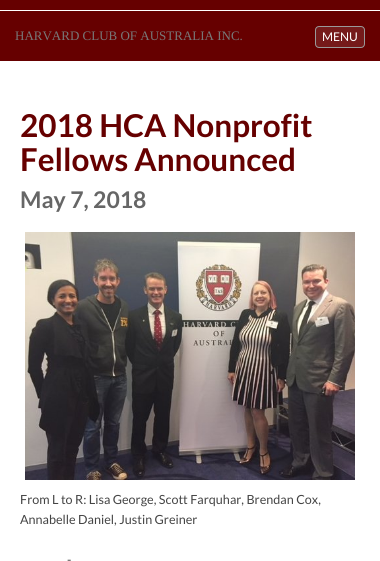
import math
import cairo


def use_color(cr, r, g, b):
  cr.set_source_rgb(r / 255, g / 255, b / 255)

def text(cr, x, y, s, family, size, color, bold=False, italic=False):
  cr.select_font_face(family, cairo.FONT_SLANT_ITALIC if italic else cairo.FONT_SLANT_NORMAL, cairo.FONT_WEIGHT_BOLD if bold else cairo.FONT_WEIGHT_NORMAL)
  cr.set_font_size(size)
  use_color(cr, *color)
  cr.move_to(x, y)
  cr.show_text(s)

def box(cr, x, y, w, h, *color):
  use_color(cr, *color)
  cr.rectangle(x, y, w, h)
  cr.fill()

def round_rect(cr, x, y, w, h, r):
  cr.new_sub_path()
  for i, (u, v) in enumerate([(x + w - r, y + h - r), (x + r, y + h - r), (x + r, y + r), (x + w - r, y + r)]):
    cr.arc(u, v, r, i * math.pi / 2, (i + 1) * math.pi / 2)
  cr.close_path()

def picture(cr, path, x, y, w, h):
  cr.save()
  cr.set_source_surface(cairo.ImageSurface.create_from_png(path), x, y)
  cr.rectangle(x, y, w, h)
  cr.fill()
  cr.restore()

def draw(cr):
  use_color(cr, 102, 0, 0)
  cr.paint()
  box(cr, 0, 10, 380, 1, 255, 255, 255)
  box(cr, 0, 61, 380, 500, 255, 255, 255)
  use_color(cr, 117, 26, 26)
  round_rect(cr, 315.5, 26.5, 49, 21, 3.5)
  cr.fill_preserve()
  use_color(cr, 153, 153, 153)
  cr.set_line_width(1)
  cr.stroke()
  picture(cr, "img_01.png", 25, 232, 330, 248)
  text(cr, 15, 40, "HARVARD CLUB OF AUSTRALIA INC.", "Liberation Serif", 13, (119, 119, 119))
  text(cr, 322, 41, "MENU", "Lato", 12, (255, 255, 255))
  text(cr, 20, 137, "2018 HCA Nonprofit", "Lato", 31.5, (102, 0, 0), bold=True)
  text(cr, 20, 171, "Fellows Announced", "Lato", 31.5, (102, 0, 0), bold=True)
  text(cr, 20, 208, "May 7, 2018", "Lato", 23, (102, 102, 102), bold=True)
  text(cr, 20, 504, "From L to R: Lisa George, Scott Farquhar, Brendan Cox,", "Lato", 12.6, (68, 68, 68))
  text(cr, 20, 524, "Annabelle Daniel, Justin Greiner", "Lato", 12.6, (68, 68, 68))
  text(cr, 67, 564, "-", "Lato", 12.6, (68, 68, 68))


surface = cairo.ImageSurface(cairo.FORMAT_RGB24, 380, 561)
cr = cairo.Context(surface)
options = cairo.FontOptions()
options.set_hint_metrics(cairo.HINT_METRICS_OFF)
options.set_hint_style(cairo.HINT_STYLE_NONE)
cr.set_font_options(options)
cr.set_miter_limit(4)
draw(cr)
surface.write_to_png("out.png")
